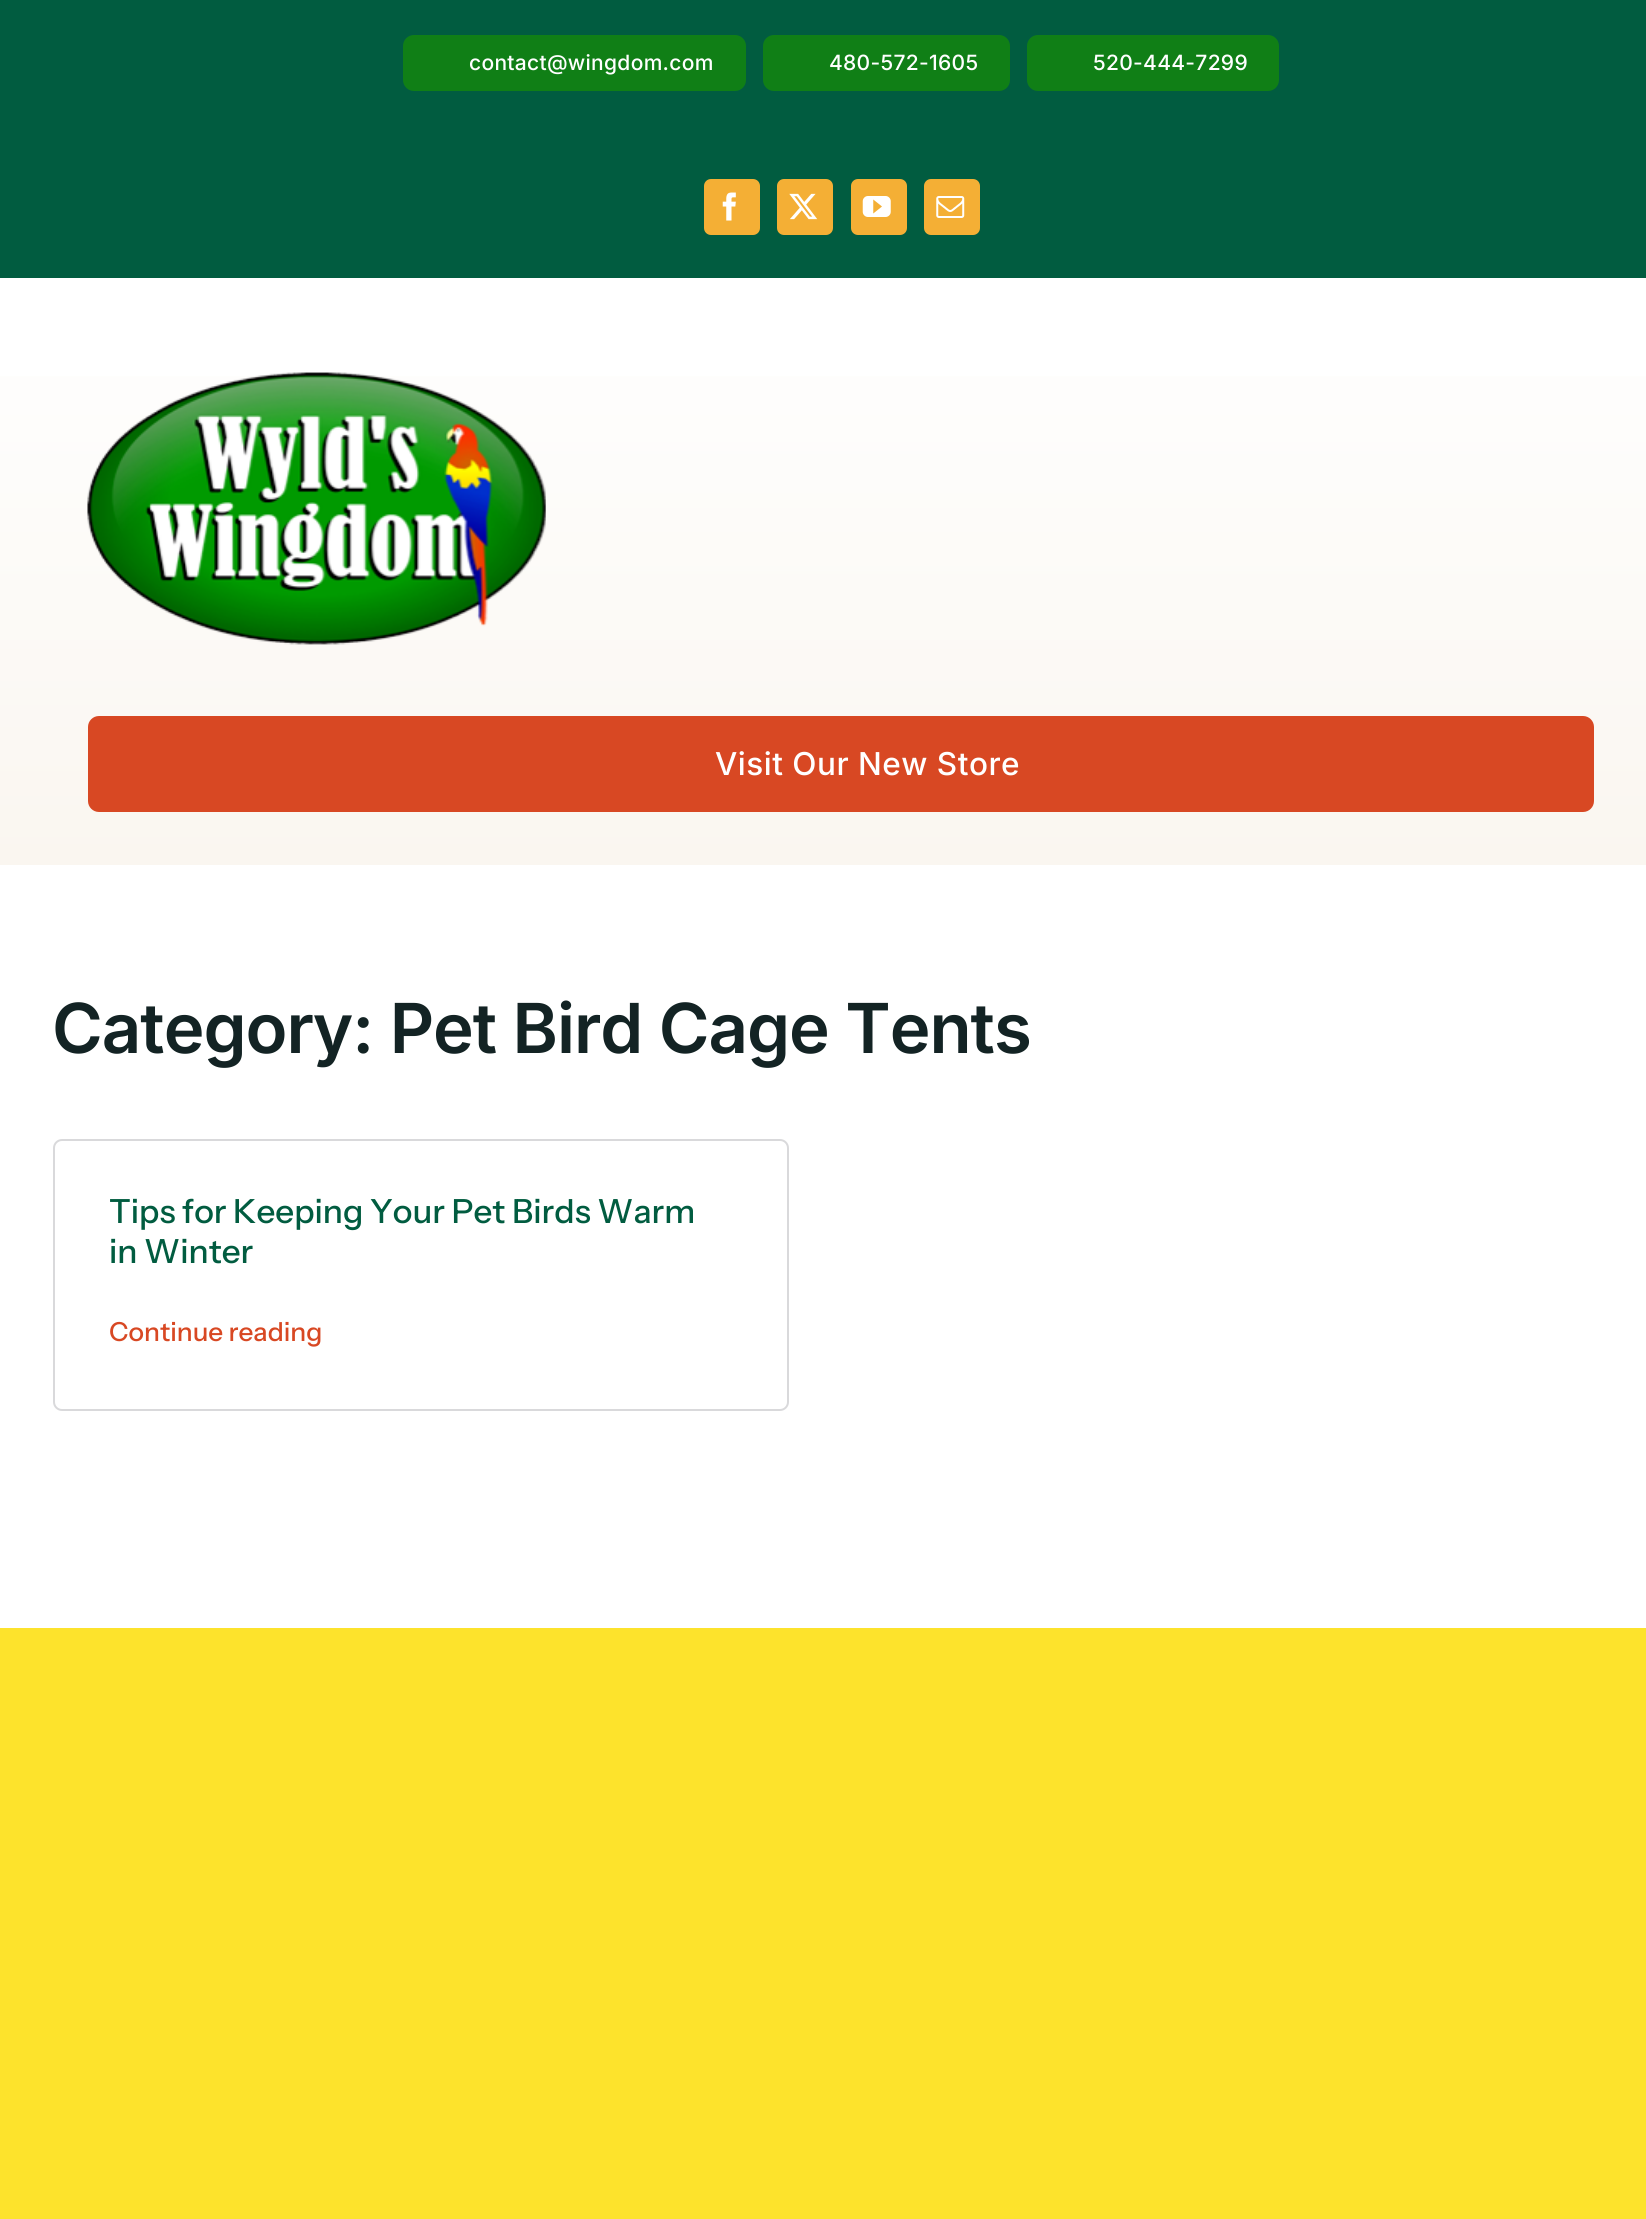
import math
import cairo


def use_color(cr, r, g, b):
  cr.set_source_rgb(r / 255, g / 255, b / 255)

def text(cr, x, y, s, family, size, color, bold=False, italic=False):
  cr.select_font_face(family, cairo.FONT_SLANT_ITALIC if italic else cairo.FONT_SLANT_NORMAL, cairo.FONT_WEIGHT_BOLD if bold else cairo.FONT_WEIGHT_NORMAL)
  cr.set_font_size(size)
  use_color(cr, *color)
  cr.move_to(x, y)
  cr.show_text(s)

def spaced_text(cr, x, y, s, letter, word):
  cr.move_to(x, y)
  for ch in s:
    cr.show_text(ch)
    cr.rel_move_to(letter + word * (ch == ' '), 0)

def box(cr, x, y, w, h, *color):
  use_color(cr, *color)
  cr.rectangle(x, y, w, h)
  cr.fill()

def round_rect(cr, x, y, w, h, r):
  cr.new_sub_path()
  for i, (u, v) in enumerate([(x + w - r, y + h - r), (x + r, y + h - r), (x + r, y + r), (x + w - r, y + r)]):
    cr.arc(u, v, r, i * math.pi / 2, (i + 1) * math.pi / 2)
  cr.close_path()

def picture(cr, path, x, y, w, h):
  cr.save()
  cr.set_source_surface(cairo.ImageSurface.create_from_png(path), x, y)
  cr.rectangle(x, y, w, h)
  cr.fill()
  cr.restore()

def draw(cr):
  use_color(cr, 255, 255, 255)
  cr.paint()
  box(cr, 0, 0, 1646, 278, 1, 92, 64)
  use_color(cr, 16, 127, 22)
  round_rect(cr, 403, 35, 343, 56, 11)
  cr.fill()
  round_rect(cr, 763, 35, 247, 56, 11)
  cr.fill()
  round_rect(cr, 1027, 35, 252, 56, 11)
  cr.fill()
  use_color(cr, 244, 175, 53)
  round_rect(cr, 704, 179, 56, 56, 7)
  cr.fill()
  picture(cr, "img_01.png", 722, 192, 14, 29)
  round_rect(cr, 777, 179, 56, 56, 7)
  cr.fill()
  picture(cr, "img_02.png", 789, 193, 29, 27)
  round_rect(cr, 851, 179, 56, 56, 7)
  cr.fill()
  picture(cr, "img_03.png", 862, 196, 29, 21)
  round_rect(cr, 924, 179, 56, 56, 7)
  cr.fill()
  picture(cr, "img_04.png", 936, 196, 29, 22)
  gradient = cairo.LinearGradient(823, 278, 823, 865)
  gradient.add_color_stop_rgba(0, 1, 1, 1, 1)
  gradient.add_color_stop_rgba(1, 0.98, 0.965, 0.941, 1)
  cr.set_source(gradient)
  cr.rectangle(0, 376, 1646, 489)
  cr.fill()
  picture(cr, "img_05.png", 87, 372, 459, 273)
  use_color(cr, 216, 72, 35)
  round_rect(cr, 88, 716, 1506, 96, 11)
  cr.fill()
  round_rect(cr, 54, 1140, 734, 270, 8)
  use_color(cr, 217, 217, 219)
  cr.stroke()
  box(cr, 0, 1628, 1646, 591, 253, 227, 44)
  cr.select_font_face("Inter Medium")
  cr.set_font_size(21)
  use_color(cr, 255, 255, 255)
  spaced_text(cr, 469, 70, "contact@wingdom.com", 0.3, 0)
  spaced_text(cr, 829, 70, "480-572-1605", 0.3, 0)
  spaced_text(cr, 1093, 70, "520-444-7299", 0.3, 0)
  cr.set_font_size(31.5)
  spaced_text(cr, 715, 775, "Visit Our New Store", 0.5, 0)
  cr.select_font_face("Inter SemiBold")
  cr.set_font_size(68.9)
  use_color(cr, 19, 35, 36)
  spaced_text(cr, 52, 1053, "Category: Pet Bird Cage Tents", -1, 0)
  text(cr, 109, 1223, "Tips for Keeping Your Pet Birds Warm", "Instrument Sans Medium", 33.25, (1, 92, 64))
  text(cr, 109, 1263, "in Winter", "Instrument Sans Medium", 33.25, (1, 92, 64))
  text(cr, 109, 1341, "Continue reading", "Instrument Sans Medium", 26.25, (216, 72, 35))


surface = cairo.ImageSurface(cairo.FORMAT_RGB24, 1646, 2219)
cr = cairo.Context(surface)
options = cairo.FontOptions()
options.set_hint_metrics(cairo.HINT_METRICS_OFF)
options.set_hint_style(cairo.HINT_STYLE_NONE)
cr.set_font_options(options)
cr.set_miter_limit(4)
draw(cr)
surface.write_to_png("out.png")
